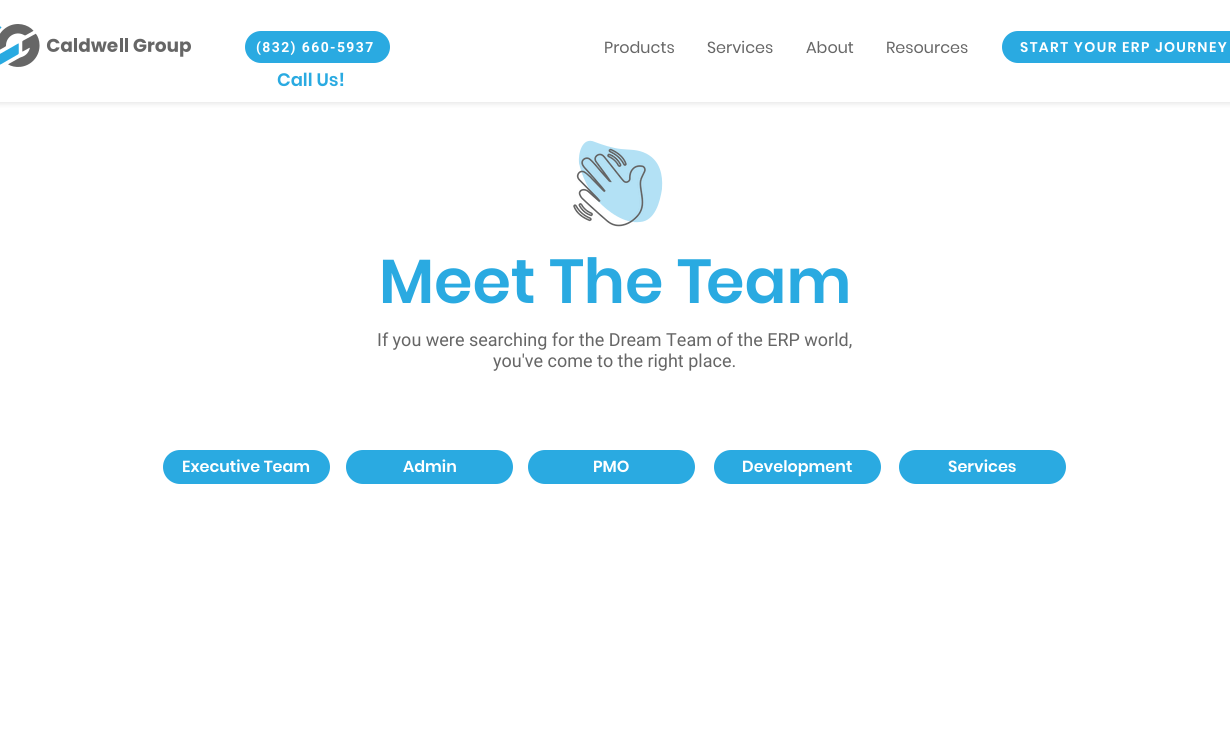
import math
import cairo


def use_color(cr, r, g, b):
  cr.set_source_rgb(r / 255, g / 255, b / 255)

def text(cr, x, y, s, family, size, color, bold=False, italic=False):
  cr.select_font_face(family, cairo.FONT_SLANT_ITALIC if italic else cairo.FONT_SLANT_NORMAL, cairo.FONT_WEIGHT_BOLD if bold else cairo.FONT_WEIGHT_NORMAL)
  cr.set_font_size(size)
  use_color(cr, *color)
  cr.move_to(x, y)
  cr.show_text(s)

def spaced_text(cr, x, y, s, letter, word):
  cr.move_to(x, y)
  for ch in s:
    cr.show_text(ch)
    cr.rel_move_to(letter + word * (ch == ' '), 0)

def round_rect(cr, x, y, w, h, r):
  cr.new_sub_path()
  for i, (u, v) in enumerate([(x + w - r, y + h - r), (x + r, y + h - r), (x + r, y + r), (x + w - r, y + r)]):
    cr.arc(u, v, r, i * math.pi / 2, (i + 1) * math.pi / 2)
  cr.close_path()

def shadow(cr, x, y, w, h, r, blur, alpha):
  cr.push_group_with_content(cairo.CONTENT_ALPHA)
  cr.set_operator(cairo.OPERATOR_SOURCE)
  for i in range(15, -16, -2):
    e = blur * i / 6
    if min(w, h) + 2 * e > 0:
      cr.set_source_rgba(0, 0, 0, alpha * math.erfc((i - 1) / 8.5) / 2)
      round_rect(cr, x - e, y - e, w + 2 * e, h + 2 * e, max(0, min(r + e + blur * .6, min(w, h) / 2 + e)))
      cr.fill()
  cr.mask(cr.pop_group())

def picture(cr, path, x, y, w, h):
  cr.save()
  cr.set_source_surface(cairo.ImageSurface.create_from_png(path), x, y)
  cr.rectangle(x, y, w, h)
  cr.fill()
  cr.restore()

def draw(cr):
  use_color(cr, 255, 255, 255)
  cr.paint()
  cr.save()
  cr.rectangle(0, 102, 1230, 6)
  cr.clip()
  use_color(cr, 204, 204, 204)
  shadow(cr, -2, -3, 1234, 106, 0, 3, 0.6)
  cr.restore()
  picture(cr, "img_01.png", 0, 24, 191, 43)
  use_color(cr, 42, 170, 225)
  round_rect(cr, 245, 31, 145, 32, 16)
  cr.fill()
  round_rect(cr, 1002, 31, 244, 32, 16)
  cr.fill()
  use_color(cr, 179, 225, 245)
  cr.new_path()
  cr.move_to(662, 188)
  cr.line_to(662, 189)
  cr.curve_to(660, 202, 655, 221, 640, 222)
  cr.curve_to(625, 224, 608, 212, 598, 201)
  cr.curve_to(589, 191, 582, 177, 579, 163)
  cr.curve_to(578, 154, 582, 136, 595, 142)
  cr.curve_to(603, 145, 612, 148, 621, 149)
  cr.curve_to(630, 150, 638, 149, 647, 154)
  cr.curve_to(660, 161, 663, 175, 662, 188)
  cr.close_path()
  cr.fill()
  picture(cr, "img_02.png", 573, 148, 73, 79)
  use_color(cr, 42, 170, 225)
  round_rect(cr, 163, 450, 167, 34, 17)
  cr.fill()
  round_rect(cr, 346, 450, 167, 34, 17)
  cr.fill()
  round_rect(cr, 528, 450, 167, 34, 17)
  cr.fill()
  round_rect(cr, 714, 450, 167, 34, 17)
  cr.fill()
  round_rect(cr, 899, 450, 167, 34, 17)
  cr.fill()
  cr.select_font_face("Roboto", cairo.FONT_SLANT_NORMAL, cairo.FONT_WEIGHT_BOLD)
  cr.set_font_size(14)
  use_color(cr, 255, 255, 255)
  spaced_text(cr, 256, 52, "(832) 660-5937", 1.4, 0)
  text(cr, 604, 53, "Products", "Poppins", 16, (102, 102, 102))
  text(cr, 707, 53, "Services", "Poppins", 16, (102, 102, 102))
  text(cr, 806, 53, "About", "Poppins", 16, (102, 102, 102))
  text(cr, 886, 53, "Resources", "Poppins", 16, (102, 102, 102))
  cr.select_font_face("Poppins SemiBold")
  cr.set_font_size(14)
  use_color(cr, 255, 255, 255)
  spaced_text(cr, 1020, 52, "START YOUR ERP JOURNEY", 1.4, 0)
  text(cr, 277, 86, "Call Us!", "Poppins SemiBold", 18, (42, 170, 225))
  text(cr, 379, 303, "Meet The", "Poppins SemiBold", 62, (42, 170, 225))
  spaced_text(cr, 677, 303, "T", -6, 0)
  text(cr, 706, 303, "eam", "Poppins SemiBold", 62, (42, 170, 225))
  text(cr, 377, 346, "If you were searching for the Dream Team of the ERP world,", "Roboto", 18, (102, 102, 102))
  text(cr, 493, 367, "you've come to the right place.", "Roboto", 18, (102, 102, 102))
  text(cr, 182, 472, "Executive Team", "Poppins SemiBold", 16, (255, 255, 255))
  text(cr, 403, 472, "Admin", "Poppins SemiBold", 16, (255, 255, 255))
  text(cr, 593, 472, "PMO", "Poppins SemiBold", 16, (255, 255, 255))
  text(cr, 742, 472, "Development", "Poppins SemiBold", 16, (255, 255, 255))
  text(cr, 948, 472, "Services", "Poppins SemiBold", 16, (255, 255, 255))


surface = cairo.ImageSurface(cairo.FORMAT_RGB24, 1230, 745)
cr = cairo.Context(surface)
options = cairo.FontOptions()
options.set_hint_metrics(cairo.HINT_METRICS_OFF)
options.set_hint_style(cairo.HINT_STYLE_NONE)
cr.set_font_options(options)
cr.set_miter_limit(4)
draw(cr)
surface.write_to_png("out.png")
